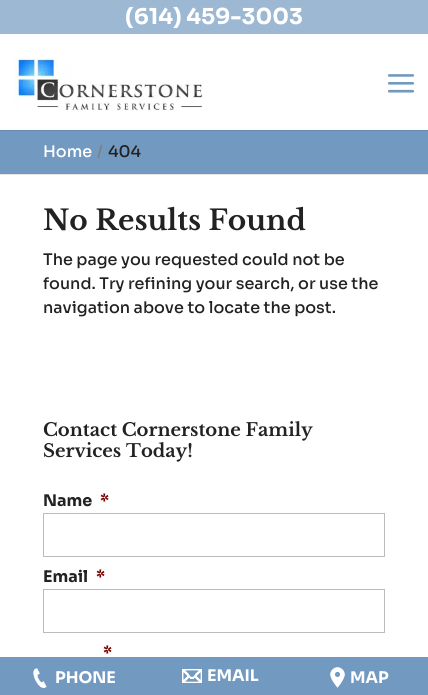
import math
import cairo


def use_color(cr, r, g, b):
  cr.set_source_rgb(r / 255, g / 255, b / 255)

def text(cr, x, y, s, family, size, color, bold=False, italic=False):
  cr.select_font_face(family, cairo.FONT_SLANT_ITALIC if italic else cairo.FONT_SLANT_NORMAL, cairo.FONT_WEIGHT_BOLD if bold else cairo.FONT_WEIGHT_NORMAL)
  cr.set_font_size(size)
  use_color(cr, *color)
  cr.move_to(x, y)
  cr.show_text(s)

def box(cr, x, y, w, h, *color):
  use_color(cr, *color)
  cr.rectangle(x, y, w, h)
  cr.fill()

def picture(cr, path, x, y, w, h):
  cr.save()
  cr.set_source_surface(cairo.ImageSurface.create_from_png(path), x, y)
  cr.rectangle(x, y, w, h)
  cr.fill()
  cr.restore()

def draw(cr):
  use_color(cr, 255, 255, 255)
  cr.paint()
  box(cr, 0, 0, 428, 34, 156, 184, 211)
  box(cr, 0, 657, 428, 38, 114, 153, 192)
  picture(cr, "img_01.png", 33, 668, 14, 20)
  picture(cr, "img_02.png", 182, 669, 20, 14)
  picture(cr, "img_03.png", 330, 667, 15, 21)
  box(cr, 0, 174, 428, 1, 230, 230, 230)
  box(cr, 0, 131, 428, 43, 114, 153, 192)
  cr.rectangle(43.5, 513.5, 341, 43)
  use_color(cr, 187, 187, 187)
  cr.set_line_width(1)
  cr.stroke()
  cr.rectangle(43.5, 589.5, 341, 43)
  cr.stroke()
  box(cr, 0, 130, 428, 1, 103, 138, 173)
  picture(cr, "img_04.png", 15, 58, 188, 53)
  picture(cr, "img_05.png", 387, 74, 28, 19)
  text(cr, 125, 24, "(614) 459-3003", "Sora", 22, (255, 255, 255), bold=True)
  text(cr, 55, 683, "PHONE", "Sora", 16, (255, 255, 255), bold=True)
  text(cr, 207, 681, "EMAIL", "Sora", 16, (255, 255, 255), bold=True)
  text(cr, 350, 683, "MAP", "Sora", 16, (255, 255, 255), bold=True)
  text(cr, 43, 157, "Home", "Sora Medium", 16, (255, 255, 255))
  text(cr, 97, 157, "/", "Sora Medium", 16, (131, 126, 126))
  text(cr, 108, 157, "404", "Sora Medium", 16, (34, 34, 34))
  text(cr, 43, 230, "No Results Found", "Libre Baskerville", 28, (34, 34, 34), bold=True)
  text(cr, 43, 265, "The page you requested could not be", "Sora Medium", 16, (34, 34, 34))
  text(cr, 43, 289, "found. Try refining your search, or use the", "Sora Medium", 16, (34, 34, 34))
  text(cr, 43, 313, "navigation above to locate the post.", "Sora Medium", 16, (34, 34, 34))
  text(cr, 43, 436, "Contact Cornerstone Family", "Libre Baskerville", 18, (34, 34, 34), bold=True)
  text(cr, 43, 457, "Services Today!", "Libre Baskerville", 18, (34, 34, 34), bold=True)
  text(cr, 43, 506, "Name", "Sora", 16, (34, 34, 34), bold=True)
  text(cr, 100, 506, "*", "Sora", 16, (121, 0, 0), bold=True)
  text(cr, 43, 582, "Email", "Sora", 16, (34, 34, 34), bold=True)
  text(cr, 96, 582, "*", "Sora", 16, (121, 0, 0), bold=True)
  text(cr, 103, 658, "*", "Sora", 16, (121, 0, 0), bold=True)


surface = cairo.ImageSurface(cairo.FORMAT_RGB24, 428, 695)
cr = cairo.Context(surface)
options = cairo.FontOptions()
options.set_hint_metrics(cairo.HINT_METRICS_OFF)
options.set_hint_style(cairo.HINT_STYLE_NONE)
cr.set_font_options(options)
cr.set_miter_limit(4)
draw(cr)
surface.write_to_png("out.png")
